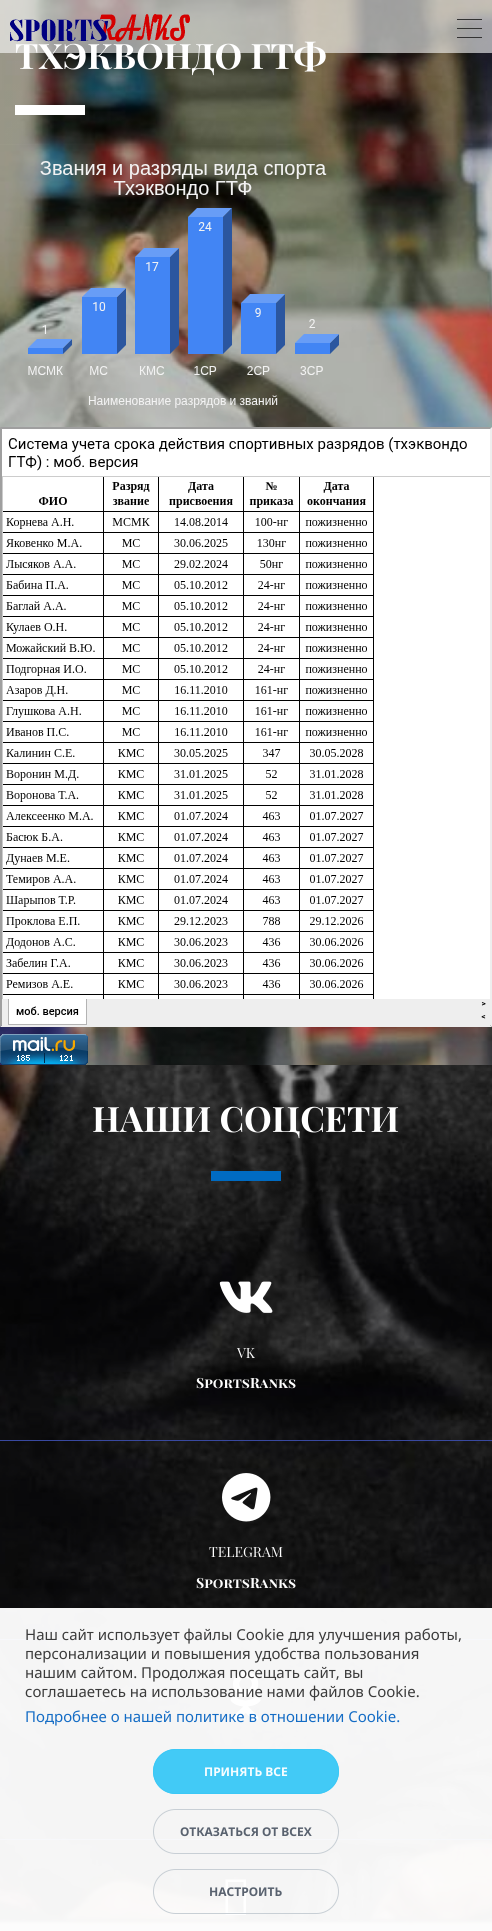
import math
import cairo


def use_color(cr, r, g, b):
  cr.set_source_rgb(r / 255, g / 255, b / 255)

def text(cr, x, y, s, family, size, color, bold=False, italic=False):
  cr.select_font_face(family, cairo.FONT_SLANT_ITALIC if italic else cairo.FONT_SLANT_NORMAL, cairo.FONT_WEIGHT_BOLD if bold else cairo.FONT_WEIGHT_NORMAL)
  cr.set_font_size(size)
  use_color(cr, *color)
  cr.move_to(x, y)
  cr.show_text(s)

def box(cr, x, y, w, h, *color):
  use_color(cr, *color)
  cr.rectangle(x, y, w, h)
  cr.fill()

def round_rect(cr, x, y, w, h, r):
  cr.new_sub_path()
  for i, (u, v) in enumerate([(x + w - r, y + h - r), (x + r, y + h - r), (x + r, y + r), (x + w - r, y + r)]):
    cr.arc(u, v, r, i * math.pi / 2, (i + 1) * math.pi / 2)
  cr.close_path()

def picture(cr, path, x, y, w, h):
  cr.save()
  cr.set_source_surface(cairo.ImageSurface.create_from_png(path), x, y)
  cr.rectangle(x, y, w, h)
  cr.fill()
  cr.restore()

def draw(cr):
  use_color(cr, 255, 255, 255)
  cr.paint()
  picture(cr, "img_02.png", 0, 0, 492, 145)
  box(cr, 15, 105, 70, 10, 255, 255, 255)
  picture(cr, "img_03.png", 0, 145, 492, 282)
  picture(cr, "img_04.png", 28, 161, 311, 247)
  picture(cr, "img_05.png", 0, 427, 492, 607)
  use_color(cr, 159, 159, 159)
  cr.new_path()
  cr.move_to(0, 427)
  cr.line_to(492, 427)
  cr.line_to(490, 429)
  cr.line_to(2, 429)
  cr.close_path()
  cr.fill()
  use_color(cr, 238, 238, 238)
  cr.new_path()
  cr.move_to(492, 427)
  cr.line_to(492, 1027)
  cr.line_to(490, 1025)
  cr.line_to(490, 429)
  cr.close_path()
  cr.fill()
  cr.new_path()
  cr.move_to(492, 1027)
  cr.line_to(0, 1027)
  cr.line_to(2, 1025)
  cr.line_to(490, 1025)
  cr.close_path()
  cr.fill()
  use_color(cr, 159, 159, 159)
  cr.new_path()
  cr.move_to(0, 1027)
  cr.line_to(0, 427)
  cr.line_to(2, 429)
  cr.line_to(2, 1025)
  cr.close_path()
  cr.fill()
  picture(cr, "img_06.png", 2, 429, 488, 596)
  picture(cr, "img_07.png", 0, 1034, 492, 31)
  picture(cr, "img_08.png", 0, 1034, 88, 31)
  picture(cr, "img_10.png", 0, 1211, 492, 720)
  box(cr, 0, 1639, 492, 1, 57, 73, 160)
  picture(cr, "img_13.png", 230, 1671, 31, 51)
  box(cr, 0, 1839, 492, 1, 57, 73, 160)
  use_color(cr, 255, 255, 255)
  cr.new_path()
  cr.move_to(225.5, 1915)
  cr.line_to(225.5, 1879.5)
  cr.line_to(246, 1879.5)
  cr.line_to(246, 1915)
  cr.close_path()
  cr.move_to(228, 1912.5)
  cr.line_to(243.5, 1912.5)
  cr.line_to(243.5, 1882)
  cr.line_to(228, 1882)
  cr.close_path()
  cr.fill()
  cr.set_source_rgba(1, 1, 1, 0.96)
  cr.rectangle(0, 1608, 492, 323)
  cr.fill()
  cr.set_source_rgba(0.231, 0.784, 0.961, 0.96)
  round_rect(cr, 153, 1749, 186, 45, 22.5)
  cr.fill()
  round_rect(cr, 153.5, 1749.5, 185, 44, 22)
  cr.set_line_width(1)
  cr.stroke()
  round_rect(cr, 153.5, 1809.5, 185, 44, 22)
  cr.set_source_rgba(0.776, 0.804, 0.827, 0.96)
  cr.stroke()
  round_rect(cr, 153.5, 1869.5, 185, 44, 22)
  cr.stroke()
  picture(cr, "img_09.png", 0, 1065, 492, 146)
  box(cr, 211, 1171, 70, 10, 0, 107, 194)
  picture(cr, "img_11.png", 219, 1281, 54, 32)
  box(cr, 0, 1440, 492, 1, 57, 73, 160)
  picture(cr, "img_12.png", 222, 1473, 49, 49)
  text(cr, 15, 69, "ТХЭКВОНДО ГТФ", "Playfair Display SC", 35, (255, 255, 255), bold=True)
  cr.set_source_rgba(1, 1, 1, 0.6)
  cr.rectangle(0, 0, 492, 53)
  cr.fill()
  picture(cr, "img_01.png", 10, 14, 180, 28)
  box(cr, 457, 37, 25, 1, 51, 51, 51)
  box(cr, 457, 28, 25, 1, 51, 51, 51)
  box(cr, 457, 19, 25, 1, 51, 51, 51)
  text(cr, 25, 1640, "Наш сайт использует файлы Cookie для улучшения работы,", "Noto Sans", 15, (59, 59, 59))
  text(cr, 25, 1659, "персонализации и повышения удобства пользования", "Noto Sans", 15, (59, 59, 59))
  text(cr, 25, 1678, "нашим сайтом. Продолжая посещать сайт, вы", "Noto Sans", 15, (59, 59, 59))
  text(cr, 25, 1697, "соглашаетесь на использование нами файлов Cookie.", "Noto Sans", 15, (59, 59, 59))
  text(cr, 25, 1722, "Подробнее о нашей политике в отношении Cookie.", "Noto Sans", 15, (20, 108, 197))
  text(cr, 204, 1776, "ПРИНЯТЬ ВСЕ", "Noto Sans", 12, (247, 253, 255), bold=True)
  text(cr, 180, 1836, "ОТКАЗАТЬСЯ ОТ ВСЕХ", "Noto Sans", 12, (89, 98, 111), bold=True)
  text(cr, 209, 1896, "НАСТРОИТЬ", "Noto Sans", 12, (89, 98, 111), bold=True)
  text(cr, 92, 1132, "НАШИ СОЦСЕТИ", "Playfair Display SC", 35, (255, 255, 255), bold=True)
  text(cr, 237, 1358, "VK", "Playfair Display SC", 14, (255, 255, 255))
  text(cr, 196, 1388, "SportsRanks", "Playfair Display SC", 14, (255, 255, 255), bold=True)
  text(cr, 209, 1557, "TELEGRAM", "Playfair Display SC", 14, (255, 255, 255))
  text(cr, 196, 1588, "SportsRanks", "Playfair Display SC", 14, (255, 255, 255), bold=True)


surface = cairo.ImageSurface(cairo.FORMAT_RGB24, 492, 1931)
cr = cairo.Context(surface)
options = cairo.FontOptions()
options.set_hint_metrics(cairo.HINT_METRICS_OFF)
options.set_hint_style(cairo.HINT_STYLE_NONE)
cr.set_font_options(options)
cr.set_miter_limit(4)
draw(cr)
surface.write_to_png("out.png")
